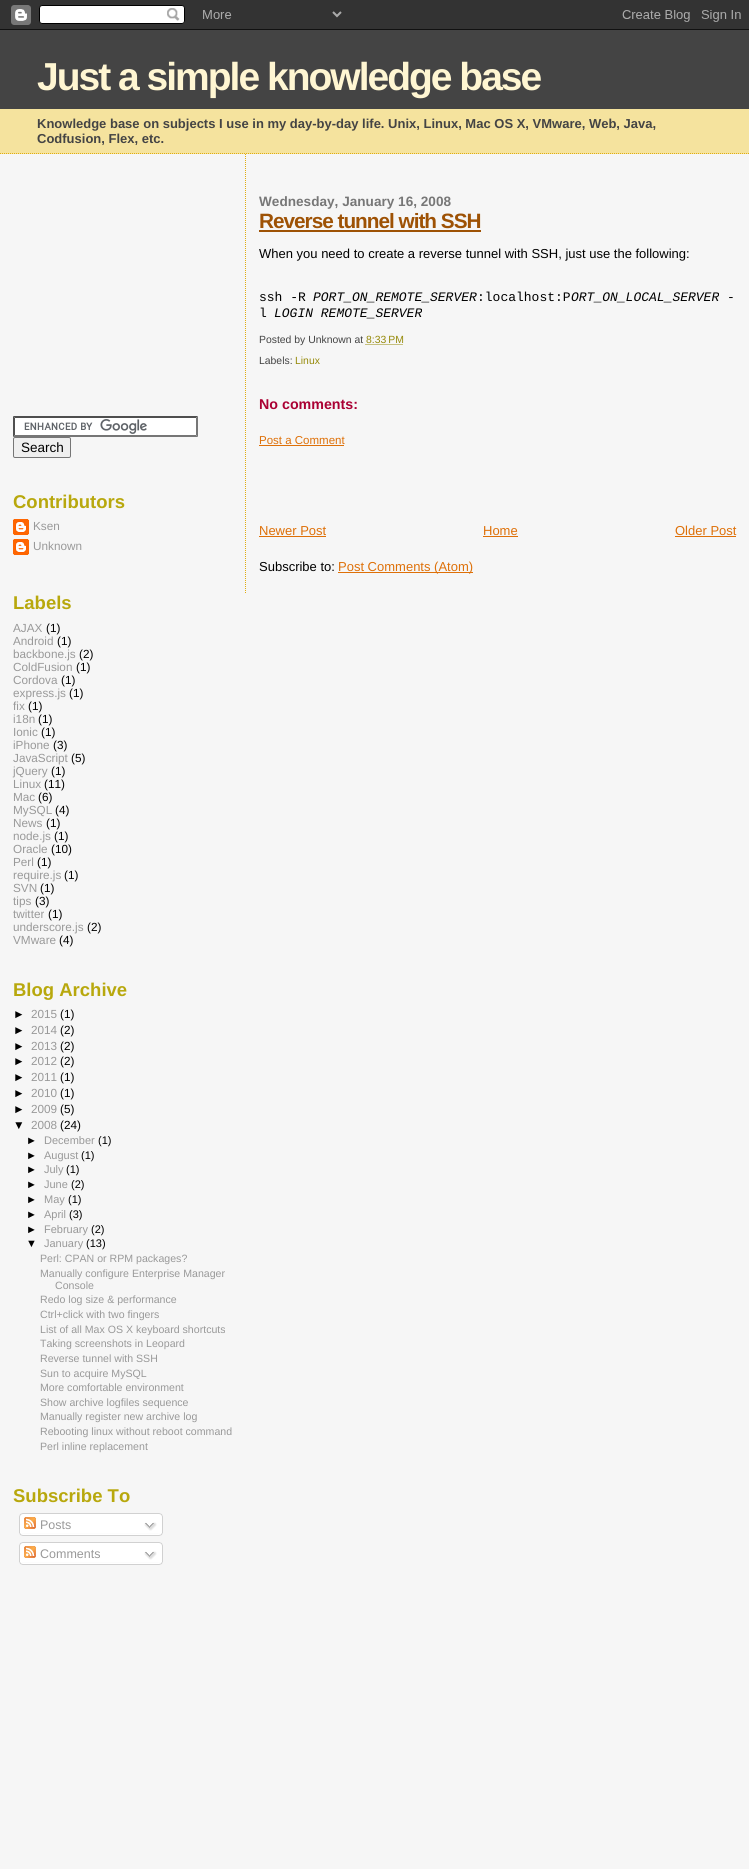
import math
import cairo


def use_color(cr, r, g, b):
  cr.set_source_rgb(r / 255, g / 255, b / 255)

def text(cr, x, y, s, family, size, color, bold=False, italic=False):
  cr.select_font_face(family, cairo.FONT_SLANT_ITALIC if italic else cairo.FONT_SLANT_NORMAL, cairo.FONT_WEIGHT_BOLD if bold else cairo.FONT_WEIGHT_NORMAL)
  cr.set_font_size(size)
  use_color(cr, *color)
  cr.move_to(x, y)
  cr.show_text(s)

def spaced_text(cr, x, y, s, letter, word):
  cr.move_to(x, y)
  for ch in s:
    cr.show_text(ch)
    cr.rel_move_to(letter + word * (ch == ' '), 0)

def box(cr, x, y, w, h, *color):
  use_color(cr, *color)
  cr.rectangle(x, y, w, h)
  cr.fill()

def round_rect(cr, x, y, w, h, r):
  cr.new_sub_path()
  for i, (u, v) in enumerate([(x + w - r, y + h - r), (x + r, y + h - r), (x + r, y + r), (x + w - r, y + r)]):
    cr.arc(u, v, r, i * math.pi / 2, (i + 1) * math.pi / 2)
  cr.close_path()

def picture(cr, path, x, y, w, h):
  cr.save()
  cr.set_source_surface(cairo.ImageSurface.create_from_png(path), x, y)
  cr.rectangle(x, y, w, h)
  cr.fill()
  cr.restore()

def draw(cr):
  use_color(cr, 246, 246, 246)
  cr.paint()
  picture(cr, "img_01.png", 0, 0, 749, 30)
  box(cr, 0, 109, 749, 45, 245, 227, 158)
  cr.new_path()
  cr.move_to(0, 153.5)
  cr.line_to(749, 153.5)
  use_color(cr, 224, 173, 18)
  cr.set_line_width(1)
  cr.set_dash([1, 1])
  cr.stroke()
  box(cr, 0, 30, 749, 79, 68, 68, 68)
  cr.new_path()
  cr.move_to(245.5, 154)
  cr.line_to(245.5, 594)
  use_color(cr, 224, 173, 18)
  cr.stroke()
  box(cr, 259, 230, 222, 2, 158, 82, 5)
  cr.new_path()
  cr.move_to(365.5, 344.5)
  cr.line_to(403.5, 344.5)
  use_color(cr, 150, 138, 10)
  cr.stroke()
  box(cr, 259, 445, 85, 1, 222, 112, 8)
  box(cr, 259, 536, 67, 1, 222, 112, 8)
  box(cr, 483, 536, 35, 1, 222, 112, 8)
  box(cr, 675, 536, 61, 1, 222, 112, 8)
  box(cr, 338, 572, 135, 1, 222, 112, 8)
  box(cr, 13, 416, 185, 21, 255, 255, 255)
  picture(cr, "img_02.png", 24, 419, 123, 15)
  use_color(cr, 79, 79, 79)
  cr.new_path()
  cr.move_to(13, 416)
  cr.line_to(198, 416)
  cr.line_to(196, 418)
  cr.line_to(15, 418)
  cr.close_path()
  cr.fill()
  use_color(cr, 118, 118, 118)
  cr.new_path()
  cr.move_to(198, 416)
  cr.line_to(198, 437)
  cr.line_to(196, 435)
  cr.line_to(196, 418)
  cr.close_path()
  cr.fill()
  cr.new_path()
  cr.move_to(198, 437)
  cr.line_to(13, 437)
  cr.line_to(15, 435)
  cr.line_to(196, 435)
  cr.close_path()
  cr.fill()
  use_color(cr, 79, 79, 79)
  cr.new_path()
  cr.move_to(13, 437)
  cr.line_to(13, 416)
  cr.line_to(15, 418)
  cr.line_to(15, 435)
  cr.close_path()
  cr.fill()
  use_color(cr, 239, 239, 239)
  round_rect(cr, 13.5, 437.5, 57, 20, 1.5)
  cr.fill_preserve()
  use_color(cr, 118, 118, 118)
  cr.set_dash([])
  cr.stroke()
  picture(cr, "img_03.png", 13, 519, 16, 16)
  picture(cr, "img_03.png", 13, 539, 16, 16)
  picture(cr, "img_04.png", 19, 1513, 144, 20)
  picture(cr, "img_05.png", 24, 1517, 12, 12)
  picture(cr, "img_06.png", 144, 1522, 13, 9)
  picture(cr, "img_07.png", 19, 1533, 144, 3)
  picture(cr, "img_04.png", 19, 1542, 144, 20)
  picture(cr, "img_05.png", 24, 1546, 12, 12)
  picture(cr, "img_06.png", 144, 1551, 13, 9)
  picture(cr, "img_07.png", 19, 1562, 144, 3)
  cr.select_font_face("Liberation Sans", cairo.FONT_SLANT_NORMAL, cairo.FONT_WEIGHT_BOLD)
  cr.set_font_size(39)
  use_color(cr, 255, 246, 210)
  spaced_text(cr, 37, 90, "Just a simple knowledge base", -2, 0)
  text(cr, 37, 128, "Knowledge base on subjects I use in my day-by-day life. Unix, Linux, Mac OS X, VMware, Web, Java,", "Liberation Sans", 13, (68, 68, 68), bold=True)
  text(cr, 37, 143, "Codfusion, Flex, etc.", "Liberation Sans", 13, (68, 68, 68), bold=True)
  text(cr, 259, 206, "Wednesday, January 16, 2008", "Liberation Sans", 13.6, (119, 119, 119), bold=True)
  cr.set_font_size(20.75)
  use_color(cr, 158, 82, 5)
  spaced_text(cr, 259, 228, "Reverse tunnel with SSH", -1, 0)
  text(cr, 259, 258, "When you need to create a reverse tunnel with SSH, just use the following:", "Liberation Sans", 13, (0, 0, 0))
  text(cr, 259, 301, "ssh -R", "Liberation Mono", 13, (0, 0, 0))
  text(cr, 313, 301, "PORT_ON_REMOTE_SERVER", "Liberation Mono", 13, (0, 0, 0), italic=True)
  text(cr, 477, 301, ":localhost:P", "Liberation Mono", 13, (0, 0, 0))
  text(cr, 571, 301, "ORT_ON_LOCAL_SERVER", "Liberation Mono", 13, (0, 0, 0), italic=True)
  text(cr, 727, 301, "-", "Liberation Mono", 13, (0, 0, 0))
  text(cr, 259, 317, "l", "Liberation Mono", 13, (0, 0, 0))
  text(cr, 274, 317, "LOGIN REMOTE_SERVER", "Liberation Mono", 13, (0, 0, 0), italic=True)
  text(cr, 259, 343, "Posted by Unknown at", "Liberation Sans", 10.4, (68, 68, 68))
  text(cr, 366, 343, "8:33 PM", "Liberation Sans", 10.4, (150, 138, 10))
  text(cr, 259, 364, "Labels:", "Liberation Sans", 10.4, (68, 68, 68))
  text(cr, 295, 364, "Linux", "Liberation Sans", 10.4, (150, 138, 10))
  text(cr, 259, 409, "No comments:", "Liberation Sans", 14.25, (170, 0, 51), bold=True)
  text(cr, 259, 444, "Post a Comment", "Liberation Sans", 11.5, (222, 112, 8))
  text(cr, 259, 535, "Newer Post", "Liberation Sans", 13, (222, 112, 8))
  text(cr, 483, 535, "Home", "Liberation Sans", 13, (222, 112, 8))
  text(cr, 675, 535, "Older Post", "Liberation Sans", 13, (222, 112, 8))
  text(cr, 259, 571, "Subscribe to:", "Liberation Sans", 13, (0, 0, 0))
  text(cr, 338, 571, "Post Comments (Atom)", "Liberation Sans", 13, (222, 112, 8))
  text(cr, 21, 452, "Search", "Liberation Sans", 13.5, (0, 0, 0))
  text(cr, 13, 508, "Contributors", "Liberation Sans", 18.5, (184, 168, 13), bold=True)
  text(cr, 33, 530, "Ksen", "Liberation Sans", 11.75, (153, 153, 153))
  text(cr, 33, 550, "Unknown", "Liberation Sans", 11.75, (153, 153, 153))
  text(cr, 13, 609, "Labels", "Liberation Sans", 18.5, (184, 168, 13), bold=True)
  text(cr, 13, 632, "AJAX", "Liberation Sans", 11.75, (153, 153, 153))
  text(cr, 46, 632, "(1)", "Liberation Sans", 11.75, (0, 0, 0))
  text(cr, 13, 645, "Android", "Liberation Sans", 11.75, (153, 153, 153))
  text(cr, 57, 645, "(1)", "Liberation Sans", 11.75, (0, 0, 0))
  text(cr, 13, 658, "backbone.js", "Liberation Sans", 11.75, (153, 153, 153))
  text(cr, 79, 658, "(2)", "Liberation Sans", 11.75, (0, 0, 0))
  text(cr, 13, 671, "ColdFusion", "Liberation Sans", 11.75, (153, 153, 153))
  text(cr, 76, 671, "(1)", "Liberation Sans", 11.75, (0, 0, 0))
  text(cr, 13, 684, "Cordova", "Liberation Sans", 11.75, (153, 153, 153))
  text(cr, 61, 684, "(1)", "Liberation Sans", 11.75, (0, 0, 0))
  text(cr, 13, 697, "express.js", "Liberation Sans", 11.75, (153, 153, 153))
  text(cr, 69, 697, "(1)", "Liberation Sans", 11.75, (0, 0, 0))
  text(cr, 13, 710, "fix", "Liberation Sans", 11.75, (153, 153, 153))
  text(cr, 28, 710, "(1)", "Liberation Sans", 11.75, (0, 0, 0))
  text(cr, 13, 723, "i18n", "Liberation Sans", 11.75, (153, 153, 153))
  text(cr, 38, 723, "(1)", "Liberation Sans", 11.75, (0, 0, 0))
  text(cr, 13, 736, "Ionic", "Liberation Sans", 11.75, (153, 153, 153))
  text(cr, 41, 736, "(1)", "Liberation Sans", 11.75, (0, 0, 0))
  text(cr, 13, 749, "iPhone", "Liberation Sans", 11.75, (153, 153, 153))
  text(cr, 53, 749, "(3)", "Liberation Sans", 11.75, (0, 0, 0))
  text(cr, 13, 762, "JavaScript", "Liberation Sans", 11.75, (153, 153, 153))
  text(cr, 71, 762, "(5)", "Liberation Sans", 11.75, (0, 0, 0))
  text(cr, 13, 775, "jQuery", "Liberation Sans", 11.75, (153, 153, 153))
  text(cr, 51, 775, "(1)", "Liberation Sans", 11.75, (0, 0, 0))
  text(cr, 13, 788, "Linux", "Liberation Sans", 11.75, (153, 153, 153))
  text(cr, 44, 788, "(11)", "Liberation Sans", 11.75, (0, 0, 0))
  text(cr, 13, 801, "Mac", "Liberation Sans", 11.75, (153, 153, 153))
  text(cr, 38, 801, "(6)", "Liberation Sans", 11.75, (0, 0, 0))
  text(cr, 13, 814, "MySQL", "Liberation Sans", 11.75, (153, 153, 153))
  text(cr, 55, 814, "(4)", "Liberation Sans", 11.75, (0, 0, 0))
  text(cr, 13, 827, "News", "Liberation Sans", 11.75, (153, 153, 153))
  text(cr, 46, 827, "(1)", "Liberation Sans", 11.75, (0, 0, 0))
  text(cr, 13, 840, "node.js", "Liberation Sans", 11.75, (153, 153, 153))
  text(cr, 54, 840, "(1)", "Liberation Sans", 11.75, (0, 0, 0))
  text(cr, 13, 853, "Oracle", "Liberation Sans", 11.75, (153, 153, 153))
  text(cr, 51, 853, "(10)", "Liberation Sans", 11.75, (0, 0, 0))
  text(cr, 13, 866, "Perl", "Liberation Sans", 11.75, (153, 153, 153))
  text(cr, 37, 866, "(1)", "Liberation Sans", 11.75, (0, 0, 0))
  text(cr, 13, 879, "require.js", "Liberation Sans", 11.75, (153, 153, 153))
  text(cr, 64, 879, "(1)", "Liberation Sans", 11.75, (0, 0, 0))
  text(cr, 13, 892, "SVN", "Liberation Sans", 11.75, (153, 153, 153))
  text(cr, 40, 892, "(1)", "Liberation Sans", 11.75, (0, 0, 0))
  text(cr, 13, 905, "tips", "Liberation Sans", 11.75, (153, 153, 153))
  text(cr, 35, 905, "(3)", "Liberation Sans", 11.75, (0, 0, 0))
  text(cr, 13, 918, "twitter", "Liberation Sans", 11.75, (153, 153, 153))
  text(cr, 48, 918, "(1)", "Liberation Sans", 11.75, (0, 0, 0))
  text(cr, 13, 931, "underscore.js", "Liberation Sans", 11.75, (153, 153, 153))
  text(cr, 87, 931, "(2)", "Liberation Sans", 11.75, (0, 0, 0))
  text(cr, 13, 944, "VMware", "Liberation Sans", 11.75, (153, 153, 153))
  text(cr, 59, 944, "(4)", "Liberation Sans", 11.75, (0, 0, 0))
  text(cr, 13, 996, "Blog Archive", "Liberation Sans", 18.5, (184, 168, 13), bold=True)
  text(cr, 13, 1018, "►", "Liberation Sans", 11.75, (0, 0, 0))
  text(cr, 31, 1018, "2015", "Liberation Sans", 11.75, (153, 153, 153))
  text(cr, 60, 1018, "(1)", "Liberation Sans", 11.75, (0, 0, 0))
  text(cr, 13, 1034, "►", "Liberation Sans", 11.75, (0, 0, 0))
  text(cr, 31, 1034, "2014", "Liberation Sans", 11.75, (153, 153, 153))
  text(cr, 60, 1034, "(2)", "Liberation Sans", 11.75, (0, 0, 0))
  text(cr, 13, 1050, "►", "Liberation Sans", 11.75, (0, 0, 0))
  text(cr, 31, 1050, "2013", "Liberation Sans", 11.75, (153, 153, 153))
  text(cr, 60, 1050, "(2)", "Liberation Sans", 11.75, (0, 0, 0))
  text(cr, 13, 1065, "►", "Liberation Sans", 11.75, (0, 0, 0))
  text(cr, 31, 1065, "2012", "Liberation Sans", 11.75, (153, 153, 153))
  text(cr, 60, 1065, "(2)", "Liberation Sans", 11.75, (0, 0, 0))
  text(cr, 13, 1081, "►", "Liberation Sans", 11.75, (0, 0, 0))
  text(cr, 31, 1081, "2011", "Liberation Sans", 11.75, (153, 153, 153))
  text(cr, 60, 1081, "(1)", "Liberation Sans", 11.75, (0, 0, 0))
  text(cr, 13, 1097, "►", "Liberation Sans", 11.75, (0, 0, 0))
  text(cr, 31, 1097, "2010", "Liberation Sans", 11.75, (153, 153, 153))
  text(cr, 60, 1097, "(1)", "Liberation Sans", 11.75, (0, 0, 0))
  text(cr, 13, 1113, "►", "Liberation Sans", 11.75, (0, 0, 0))
  text(cr, 31, 1113, "2009", "Liberation Sans", 11.75, (153, 153, 153))
  text(cr, 60, 1113, "(5)", "Liberation Sans", 11.75, (0, 0, 0))
  text(cr, 13, 1129, "▼", "Liberation Sans", 11.75, (0, 0, 0))
  text(cr, 31, 1129, "2008", "Liberation Sans", 11.75, (153, 153, 153))
  text(cr, 60, 1129, "(24)", "Liberation Sans", 11.75, (0, 0, 0))
  text(cr, 26, 1144, "►", "Liberation Sans", 11, (0, 0, 0))
  text(cr, 44, 1144, "December", "Liberation Sans", 11, (153, 153, 153))
  text(cr, 98, 1144, "(1)", "Liberation Sans", 11, (0, 0, 0))
  text(cr, 26, 1159, "►", "Liberation Sans", 11, (0, 0, 0))
  text(cr, 44, 1159, "August", "Liberation Sans", 11, (153, 153, 153))
  text(cr, 81, 1159, "(1)", "Liberation Sans", 11, (0, 0, 0))
  text(cr, 26, 1173, "►", "Liberation Sans", 11, (0, 0, 0))
  text(cr, 44, 1173, "July", "Liberation Sans", 11, (153, 153, 153))
  text(cr, 66, 1173, "(1)", "Liberation Sans", 11, (0, 0, 0))
  text(cr, 26, 1188, "►", "Liberation Sans", 11, (0, 0, 0))
  text(cr, 44, 1188, "June", "Liberation Sans", 11, (153, 153, 153))
  text(cr, 71, 1188, "(2)", "Liberation Sans", 11, (0, 0, 0))
  text(cr, 26, 1203, "►", "Liberation Sans", 11, (0, 0, 0))
  text(cr, 44, 1203, "May", "Liberation Sans", 11, (153, 153, 153))
  text(cr, 68, 1203, "(1)", "Liberation Sans", 11, (0, 0, 0))
  text(cr, 26, 1218, "►", "Liberation Sans", 11, (0, 0, 0))
  text(cr, 44, 1218, "April", "Liberation Sans", 11, (153, 153, 153))
  text(cr, 69, 1218, "(3)", "Liberation Sans", 11, (0, 0, 0))
  text(cr, 26, 1233, "►", "Liberation Sans", 11, (0, 0, 0))
  text(cr, 44, 1233, "February", "Liberation Sans", 11, (153, 153, 153))
  text(cr, 91, 1233, "(2)", "Liberation Sans", 11, (0, 0, 0))
  text(cr, 26, 1247, "▼", "Liberation Sans", 11, (0, 0, 0))
  text(cr, 44, 1247, "January", "Liberation Sans", 11, (153, 153, 153))
  text(cr, 86, 1247, "(13)", "Liberation Sans", 11, (0, 0, 0))
  text(cr, 40, 1262, "Perl: CPAN or RPM packages?", "Liberation Sans", 10.6, (153, 153, 153))
  text(cr, 40, 1277, "Manually configure Enterprise Manager", "Liberation Sans", 10.6, (153, 153, 153))
  text(cr, 55, 1289, "Console", "Liberation Sans", 10.6, (153, 153, 153))
  text(cr, 40, 1303, "Redo log size & performance", "Liberation Sans", 10.6, (153, 153, 153))
  text(cr, 40, 1318, "Ctrl+click with two fingers", "Liberation Sans", 10.6, (153, 153, 153))
  text(cr, 40, 1333, "List of all Max OS X keyboard shortcuts", "Liberation Sans", 10.6, (153, 153, 153))
  text(cr, 40, 1347, "Taking screenshots in Leopard", "Liberation Sans", 10.6, (153, 153, 153))
  text(cr, 40, 1362, "Reverse tunnel with SSH", "Liberation Sans", 10.6, (153, 153, 153))
  text(cr, 40, 1377, "Sun to acquire MySQL", "Liberation Sans", 10.6, (153, 153, 153))
  text(cr, 40, 1391, "More comfortable environment", "Liberation Sans", 10.6, (153, 153, 153))
  text(cr, 40, 1406, "Show archive logfiles sequence", "Liberation Sans", 10.6, (153, 153, 153))
  text(cr, 40, 1420, "Manually register new archive log", "Liberation Sans", 10.6, (153, 153, 153))
  text(cr, 40, 1435, "Rebooting linux without reboot command", "Liberation Sans", 10.6, (153, 153, 153))
  text(cr, 40, 1450, "Perl inline replacement", "Liberation Sans", 10.6, (153, 153, 153))
  text(cr, 13, 1502, "Subscribe To", "Liberation Sans", 18.5, (184, 168, 13), bold=True)
  text(cr, 40, 1529, "Posts", "Liberation Sans", 12.5, (153, 153, 153))
  text(cr, 40, 1558, "Comments", "Liberation Sans", 12.5, (153, 153, 153))


surface = cairo.ImageSurface(cairo.FORMAT_RGB24, 749, 1869)
cr = cairo.Context(surface)
options = cairo.FontOptions()
options.set_hint_metrics(cairo.HINT_METRICS_OFF)
options.set_hint_style(cairo.HINT_STYLE_NONE)
cr.set_font_options(options)
cr.set_miter_limit(4)
draw(cr)
surface.write_to_png("out.png")
